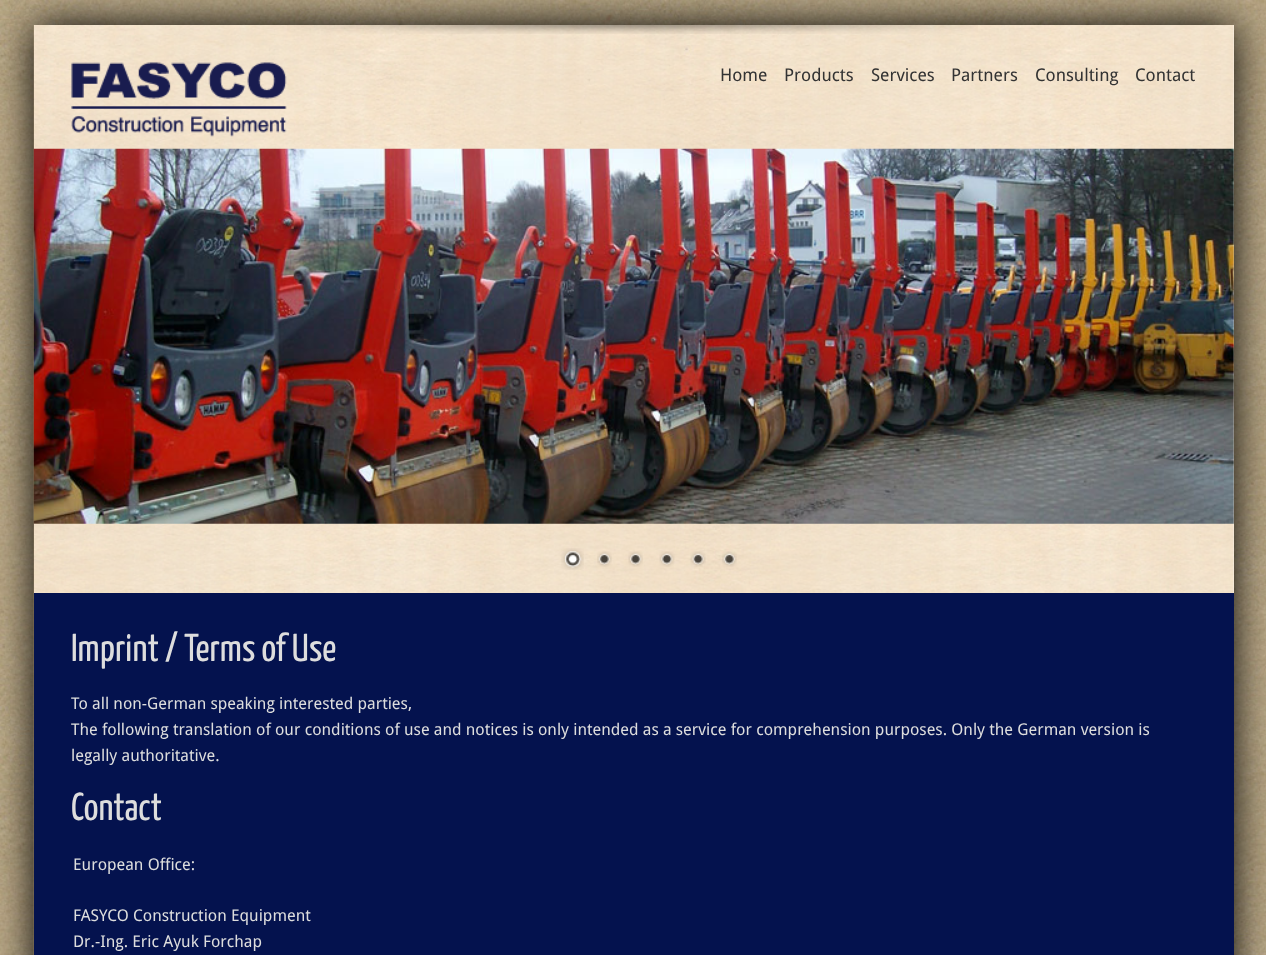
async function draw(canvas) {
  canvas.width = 1266
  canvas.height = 955
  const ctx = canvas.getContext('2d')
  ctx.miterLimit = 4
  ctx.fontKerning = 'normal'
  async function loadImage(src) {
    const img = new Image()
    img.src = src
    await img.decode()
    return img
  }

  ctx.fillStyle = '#fff'
  ctx.fillRect(0, 0, 1266, 955)
  ctx.drawImage(await loadImage('image0.png'), 0, 0, 1266, 955)
  ctx.fillStyle = '#000'
  ctx.filter = 'blur(20px)'
  ctx.beginPath()
  ctx.rect(34, 25, 1200, 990)
  ctx.fill()
  ctx.filter = 'none'
  ctx.fillStyle = '#fff'
  ctx.fillRect(34, 25, 1200, 568)
  ctx.drawImage(await loadImage('image1.png'), 33, 25, 1201, 930)
  ctx.drawImage(await loadImage('image2.png'), 287, 25, 691, 9)
  ctx.drawImage(await loadImage('image3.png'), 71, 62, 216, 75)
  ctx.font = '17.5px Droid Sans'
  ctx.fillStyle = '#333'
  ctx.fillText('Home', 720, 81)
  ctx.fillText('Products', 784, 81)
  ctx.fillText('Services', 871, 81)
  ctx.fillText('Partners', 951, 81)
  ctx.fillText('Consulting', 1035, 81)
  ctx.fillText('Contact', 1135, 81)
  ctx.drawImage(await loadImage('image4.png'), 33, 148, 1201, 376)
  ctx.drawImage(await loadImage('image5.png'), 561, 548, 23, 22)
  ctx.drawImage(await loadImage('image6.png'), 597, 551, 15, 16)
  ctx.drawImage(await loadImage('image7.png'), 628, 551, 15, 16)
  ctx.drawImage(await loadImage('image8.png'), 659, 551, 16, 16)
  ctx.drawImage(await loadImage('image9.png'), 690, 551, 16, 16)
  ctx.drawImage(await loadImage('image10.png'), 722, 551, 15, 16)
  ctx.fillStyle = '#04124e'
  ctx.fillRect(34, 593, 1200, 362)
  ctx.font = '200 39px Yanone Kaffeesatz'
  ctx.fillStyle = '#ddd'
  ctx.fillText('Imprint / Terms of Use', 71, 661)
  ctx.font = '16.25px Droid Sans'
  ctx.fillText('To all non-German speaking interested parties,', 71, 709)
  ctx.fillText('The following translation of our conditions of use and notices is only intended as a service for comprehension purposes. Only the German version is', 71, 735)
  ctx.fillText('legally authoritative.', 71, 761)
  ctx.font = '200 39px Yanone Kaffeesatz'
  ctx.fillText('Contact', 71, 820)
  ctx.font = '16.25px Droid Sans'
  ctx.fillText('European Office:', 73, 870)
  ctx.fillText('FASYCO Construction Equipment', 73, 921)
  ctx.fillText('Dr.-Ing. Eric Ayuk Forchap', 73, 947)
}

draw(document.querySelector('canvas'))
